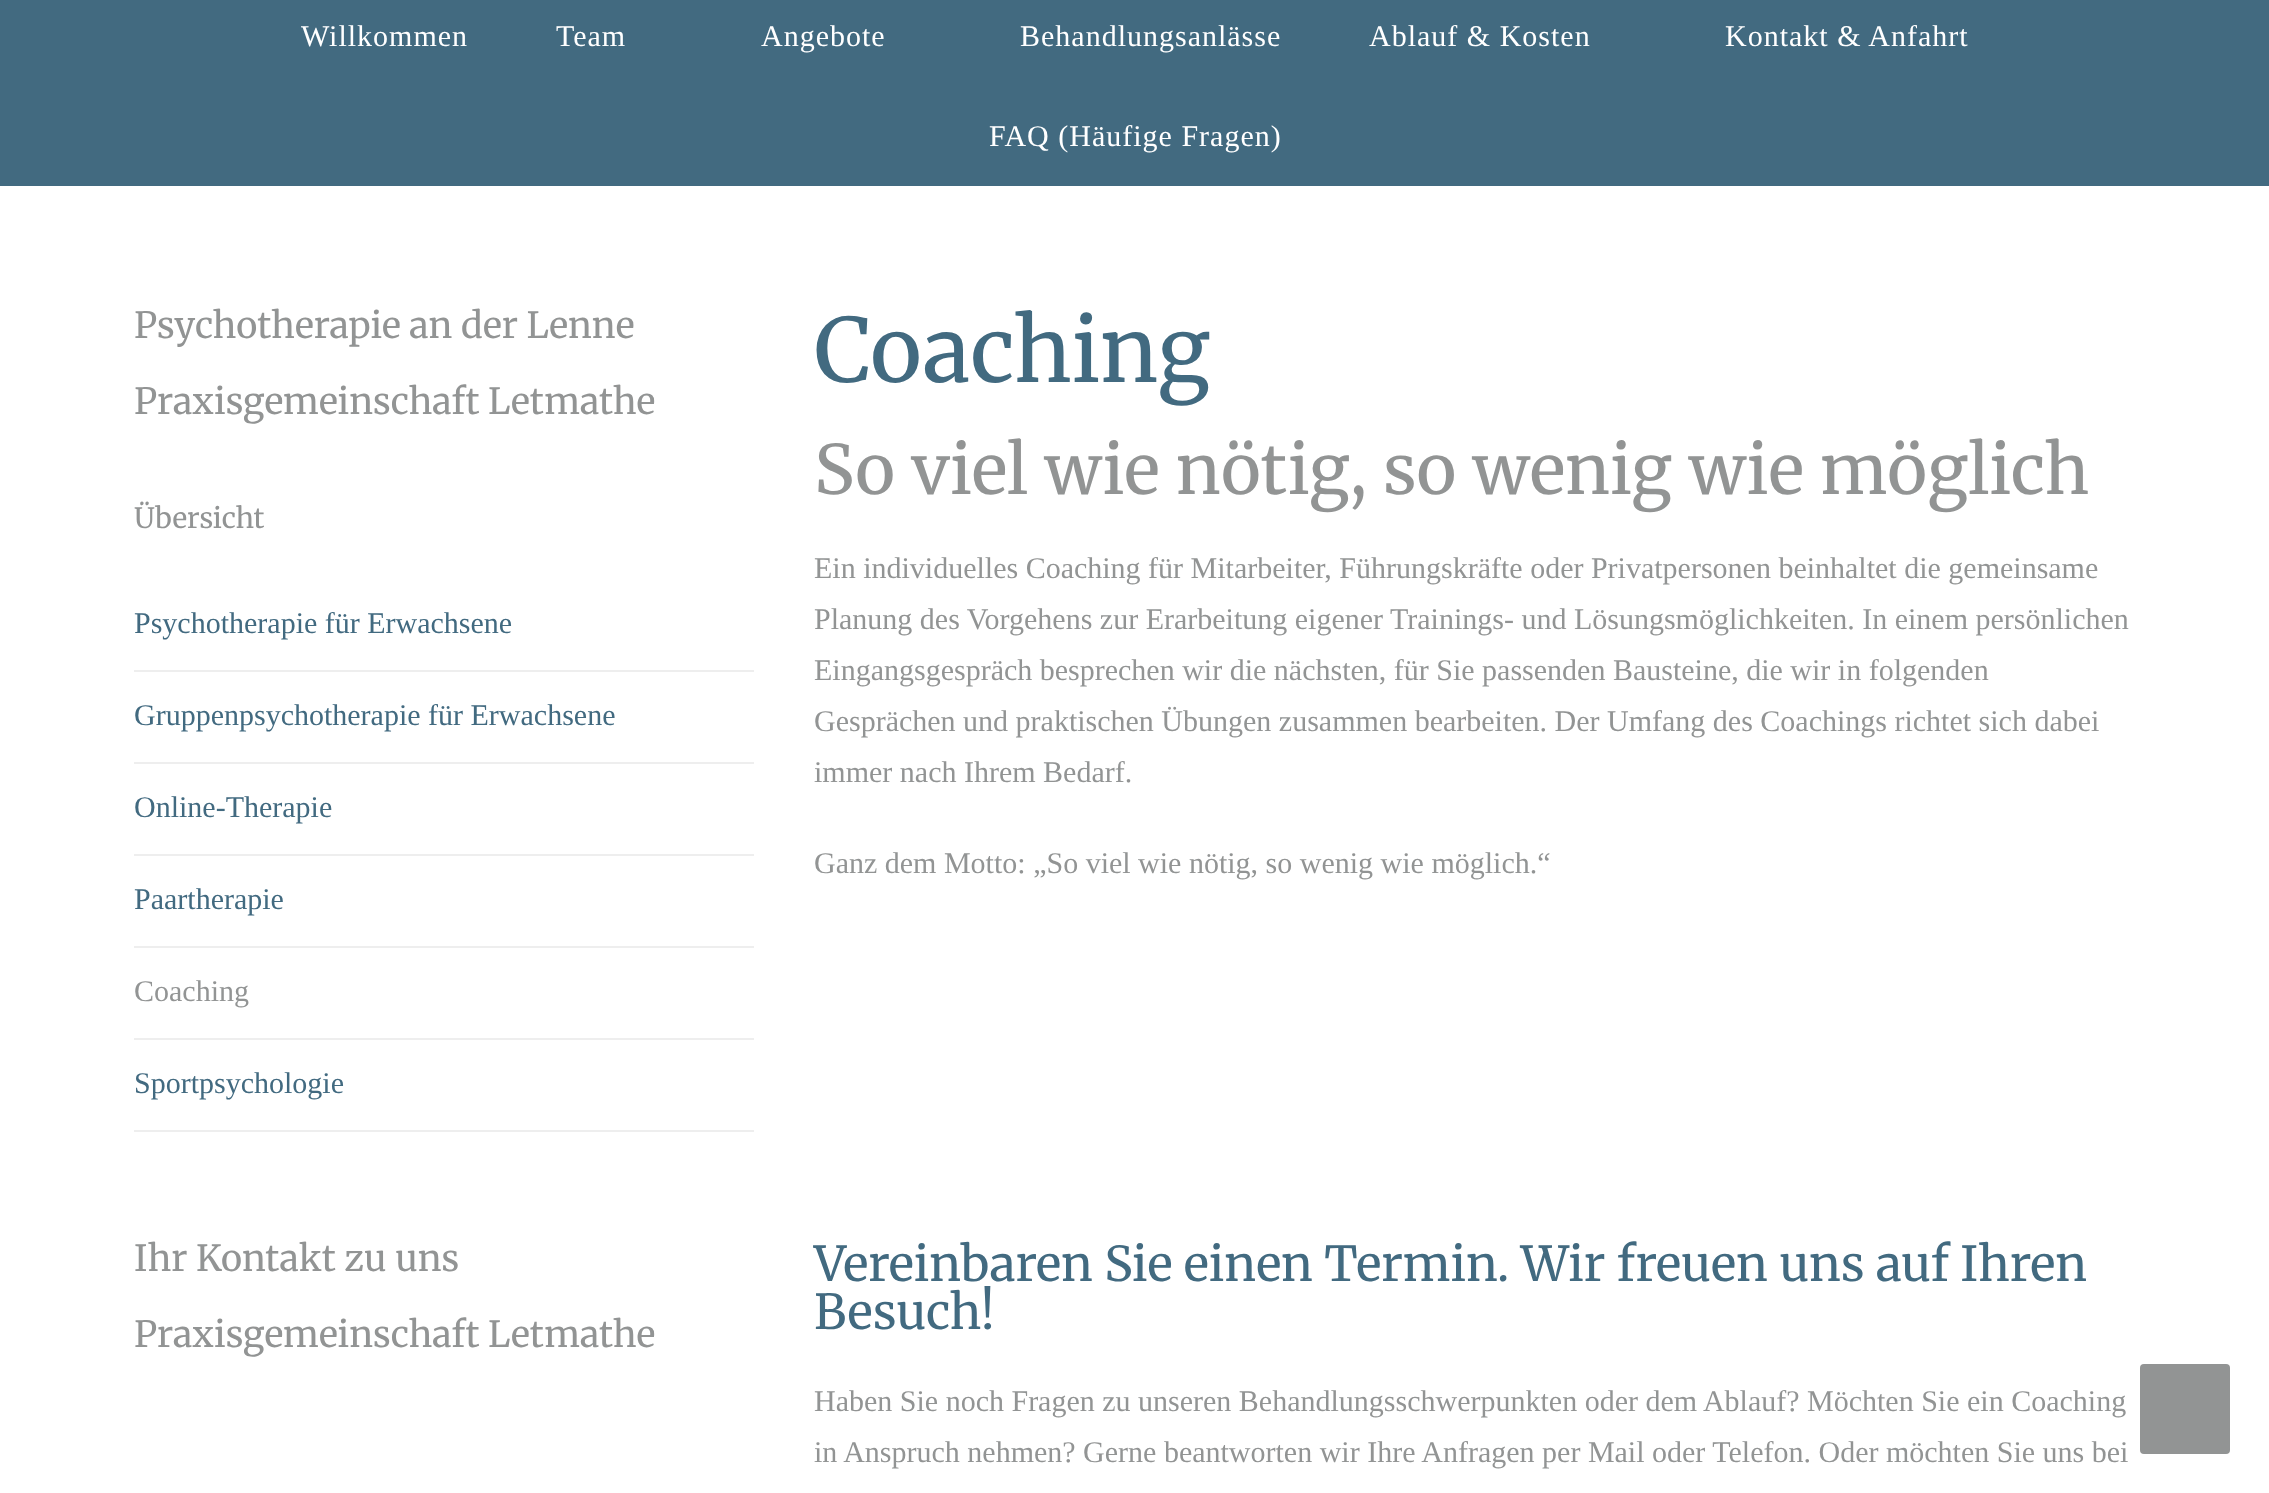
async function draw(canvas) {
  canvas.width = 2269
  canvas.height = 1493
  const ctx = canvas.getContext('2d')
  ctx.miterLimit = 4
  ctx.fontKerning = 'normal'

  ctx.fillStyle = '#fff'
  ctx.fillRect(0, 0, 2269, 1493)
  ctx.fillStyle = '#426a80'
  ctx.fillRect(0, 0, 2269, 186)
  ctx.letterSpacing = '1px'
  ctx.font = '30px Liberation Serif'
  ctx.fillStyle = '#fff'
  ctx.fillText('Willkommen', 301, 46)
  ctx.fillText('Team', 556, 46)
  ctx.fillText('Angebote', 761, 46)
  ctx.fillText('Behandlungsanlässe', 1020, 46)
  ctx.fillText('Ablauf & Kosten', 1369, 46)
  ctx.fillText('Kontakt & Anfahrt', 1725, 46)
  ctx.fillText('FAQ (Häufige Fragen)', 989, 146)
  ctx.letterSpacing = '0px'
  ctx.font = '36px Merriweather'
  ctx.fillStyle = '#929494'
  ctx.fillText('Psychotherapie an der Lenne', 134, 338)
  ctx.fillText('Praxisgemeinschaft Letmathe', 134, 414)
  ctx.font = '28px Merriweather'
  ctx.fillText('Übersicht', 134, 528)
  ctx.fillStyle = '#eee'
  ctx.fillRect(134, 670, 620, 2)
  ctx.font = '30px Liberation Serif'
  ctx.fillStyle = '#426a80'
  ctx.fillText('Psychotherapie für Erwachsene', 134, 633)
  ctx.fillStyle = '#eee'
  ctx.fillRect(134, 762, 620, 2)
  ctx.fillStyle = '#426a80'
  ctx.fillText('Gruppenpsychotherapie für Erwachsene', 134, 725)
  ctx.fillStyle = '#eee'
  ctx.fillRect(134, 854, 620, 2)
  ctx.fillStyle = '#426a80'
  ctx.fillText('Online-Therapie', 134, 817)
  ctx.fillStyle = '#eee'
  ctx.fillRect(134, 946, 620, 2)
  ctx.fillStyle = '#426a80'
  ctx.fillText('Paartherapie', 134, 909)
  ctx.fillStyle = '#eee'
  ctx.fillRect(134, 1038, 620, 2)
  ctx.fillStyle = '#929494'
  ctx.fillText('Coaching', 134, 1001)
  ctx.fillStyle = '#eee'
  ctx.fillRect(134, 1130, 620, 2)
  ctx.fillStyle = '#426a80'
  ctx.fillText('Sportpsychologie', 134, 1093)
  ctx.font = '88px Merriweather'
  ctx.fillText('Coaching', 814, 382)
  ctx.font = '68px Merriweather'
  ctx.fillStyle = '#929494'
  ctx.fillText('So viel wie nötig, so wenig wie möglich', 814, 494)
  ctx.font = '30px Liberation Serif'
  ctx.fillText('Ein individuelles Coaching für Mitarbeiter, Führungskräfte oder Privatpersonen beinhaltet die gemeinsame', 814, 578)
  ctx.fillText('Planung des Vorgehens zur Erarbeitung eigener Trainings- und Lösungsmöglichkeiten. In einem persönlichen', 814, 629)
  ctx.fillText('Eingangsgespräch besprechen wir die nächsten, für Sie passenden Bausteine, die wir in folgenden', 814, 680)
  ctx.fillText('Gesprächen und praktischen Übungen zusammen bearbeiten. Der Umfang des Coachings richtet sich dabei', 814, 731)
  ctx.fillText('immer nach Ihrem Bedarf.', 814, 782)
  ctx.fillText('Ganz dem Motto: „So viel wie nötig, so wenig wie möglich.“', 814, 873)
  ctx.font = '36px Merriweather'
  ctx.fillText('Ihr Kontakt zu uns', 134, 1271)
  ctx.fillText('Praxisgemeinschaft Letmathe', 134, 1347)
  ctx.font = '48px Merriweather'
  ctx.fillStyle = '#426a80'
  ctx.fillText('Vereinbaren Sie einen Termin. Wir freuen uns auf Ihren', 814, 1281)
  ctx.fillText('Besuch!', 814, 1329)
  ctx.font = '30px Liberation Serif'
  ctx.fillStyle = '#929494'
  ctx.fillText('Haben Sie noch Fragen zu unseren Behandlungsschwerpunkten oder dem Ablauf? Möchten Sie ein Coaching', 814, 1411)
  ctx.fillText('in Anspruch nehmen? Gerne beantworten wir Ihre Anfragen per Mail oder Telefon. Oder möchten Sie uns bei', 814, 1462)
  ctx.beginPath()
  ctx.roundRect(2140, 1364, 90, 90, 4)
  ctx.fill()
}

draw(document.querySelector('canvas'))
